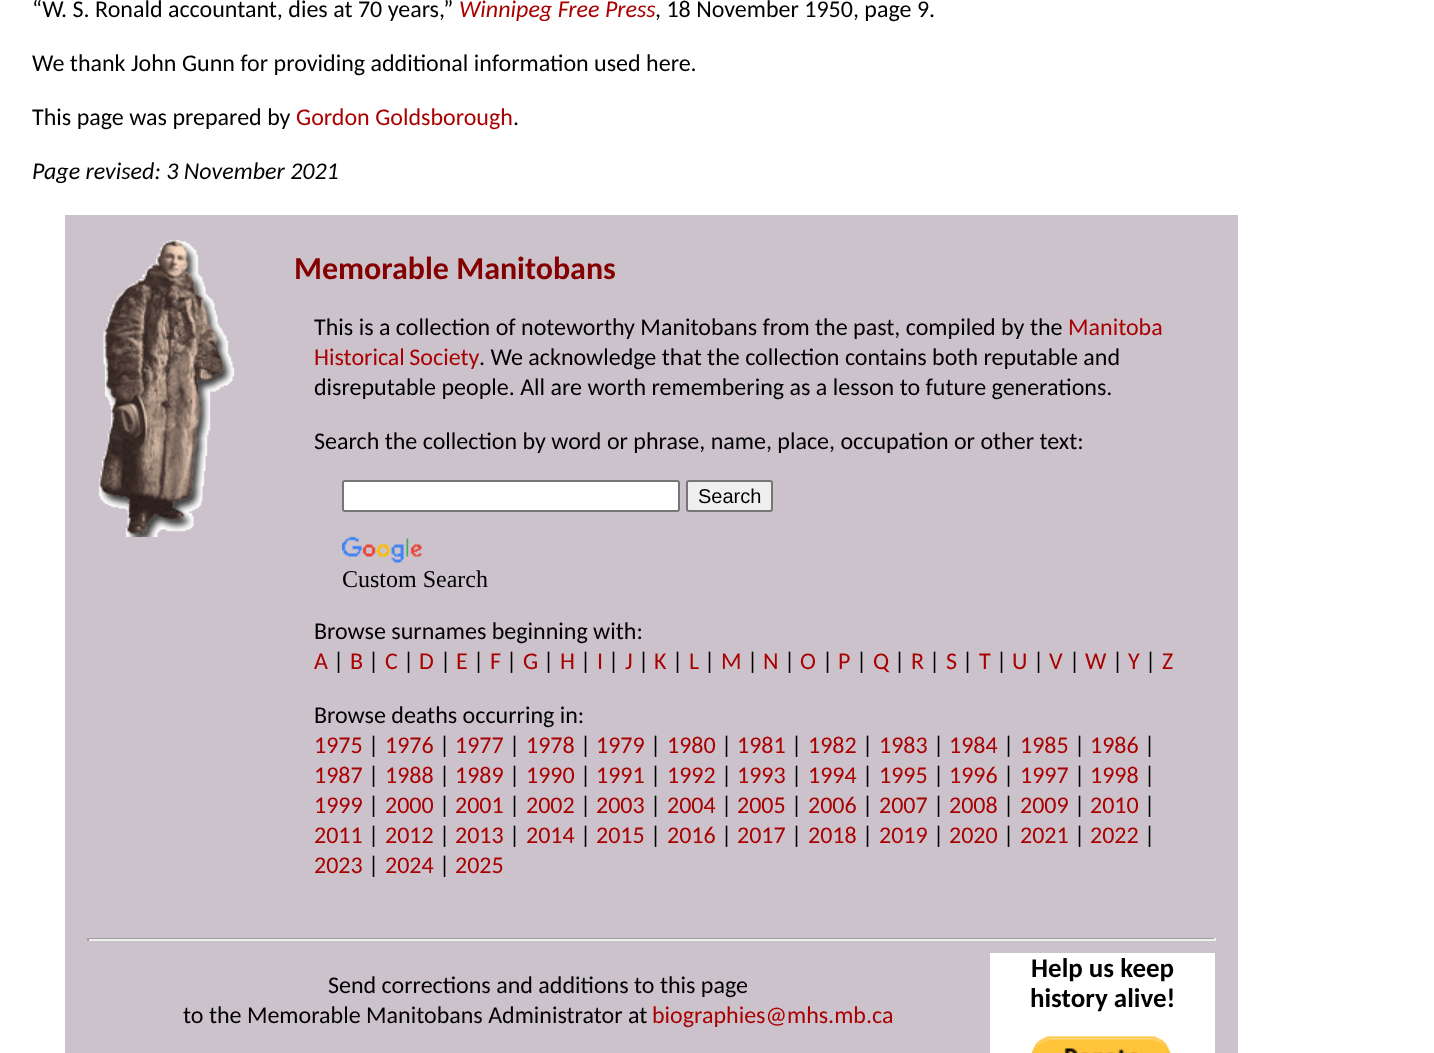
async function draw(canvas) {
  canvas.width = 1434
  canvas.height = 1053
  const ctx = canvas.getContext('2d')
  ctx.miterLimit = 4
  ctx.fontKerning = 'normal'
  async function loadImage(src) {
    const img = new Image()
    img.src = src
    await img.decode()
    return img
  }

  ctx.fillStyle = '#fff'
  ctx.fillRect(0, 0, 1434, 1053)
  ctx.font = '24px Carlito'
  ctx.fillStyle = '#000'
  ctx.fillText('“W. S. Ronald accountant, dies at 70 years,”', 32, 17)
  ctx.font = 'italic 24px Carlito'
  ctx.fillStyle = '#a90000'
  ctx.fillText('Winnipeg Free Press', 459, 17)
  ctx.font = '24px Carlito'
  ctx.fillStyle = '#000'
  ctx.fillText(', 18 November 1950, page 9.', 655, 17)
  ctx.fillText('We thank John Gunn for providing additional information used here.', 32, 71)
  ctx.fillText('This page was prepared by', 32, 125)
  ctx.fillStyle = '#a90000'
  ctx.fillText('Gordon Goldsborough', 296, 125)
  ctx.fillStyle = '#000'
  ctx.fillText('.', 513, 125)
  ctx.font = 'italic 24px Carlito'
  ctx.fillText('Page revised: 3 November 2021', 32, 179)
  ctx.fillStyle = '#cbc2cc'
  ctx.fillRect(65, 215, 1173, 838)
  ctx.drawImage(await loadImage('image0.png'), 98, 239, 137, 298)
  ctx.font = 'bold 32px Carlito'
  ctx.fillStyle = '#840000'
  ctx.fillText('Memorable Manitobans', 294, 279)
  ctx.font = '24px Carlito'
  ctx.fillStyle = '#000'
  ctx.fillText('This is a collection of noteworthy Manitobans from the past, compiled by the', 314, 335)
  ctx.fillStyle = '#a90000'
  ctx.fillText('Manitoba', 1068, 335)
  ctx.wordSpacing = '-1px'
  ctx.fillText('Historical Society', 314, 365)
  ctx.wordSpacing = '0px'
  ctx.fillStyle = '#000'
  ctx.fillText('. We acknowledge that the collection contains both reputable and', 479, 365)
  ctx.fillText('disreputable people. All are worth remembering as a lesson to future generations.', 314, 395)
  ctx.fillText('Search the collection by word or phrase, name, place, occupation or other text:', 314, 449)
  ctx.fillStyle = '#fff'
  ctx.beginPath()
  ctx.roundRect(343, 481, 336, 30, 2)
  ctx.fill()
  ctx.strokeStyle = '#767676'
  ctx.lineWidth = 2
  ctx.stroke()
  ctx.fillStyle = '#efefef'
  ctx.beginPath()
  ctx.roundRect(687, 481, 85, 30, 2)
  ctx.fill()
  ctx.stroke()
  ctx.font = '20px Liberation Sans'
  ctx.fillStyle = '#000'
  ctx.fillText('Search', 698, 503)
  ctx.drawImage(await loadImage('image1.png'), 342, 536, 80, 27)
  ctx.font = '24px Liberation Serif'
  ctx.fillText('Custom Search', 342, 587)
  ctx.font = '24px Carlito'
  ctx.fillText('Browse surnames beginning with:', 314, 639)
  ctx.fillStyle = '#a90000'
  ctx.fillText('A', 314, 669)
  ctx.fillStyle = '#000'
  ctx.fillText('|', 333, 669)
  ctx.fillStyle = '#a90000'
  ctx.fillText('B', 350, 669)
  ctx.fillStyle = '#000'
  ctx.fillText('|', 368, 669)
  ctx.fillStyle = '#a90000'
  ctx.fillText('C', 385, 669)
  ctx.fillStyle = '#000'
  ctx.fillText('|', 403, 669)
  ctx.fillStyle = '#a90000'
  ctx.fillText('D', 419, 669)
  ctx.fillStyle = '#000'
  ctx.fillText('|', 440, 669)
  ctx.fillStyle = '#a90000'
  ctx.fillText('E', 456, 669)
  ctx.fillStyle = '#000'
  ctx.fillText('|', 473, 669)
  ctx.fillStyle = '#a90000'
  ctx.fillText('F', 490, 669)
  ctx.fillStyle = '#000'
  ctx.fillText('|', 506, 669)
  ctx.fillStyle = '#a90000'
  ctx.fillText('G', 523, 669)
  ctx.fillStyle = '#000'
  ctx.fillText('|', 543, 669)
  ctx.fillStyle = '#a90000'
  ctx.fillText('H', 560, 669)
  ctx.fillStyle = '#000'
  ctx.fillText('|', 580, 669)
  ctx.fillStyle = '#a90000'
  ctx.fillText('I', 597, 669)
  ctx.fillStyle = '#000'
  ctx.fillText('|', 608, 669)
  ctx.fillStyle = '#a90000'
  ctx.fillText('J', 625, 669)
  ctx.fillStyle = '#000'
  ctx.fillText('|', 638, 669)
  ctx.fillStyle = '#a90000'
  ctx.fillText('K', 654, 669)
  ctx.fillStyle = '#000'
  ctx.fillText('|', 672, 669)
  ctx.fillStyle = '#a90000'
  ctx.fillText('L', 689, 669)
  ctx.fillStyle = '#000'
  ctx.fillText('|', 704, 669)
  ctx.fillStyle = '#a90000'
  ctx.fillText('M', 721, 669)
  ctx.fillStyle = '#000'
  ctx.fillText('|', 747, 669)
  ctx.fillStyle = '#a90000'
  ctx.fillText('N', 763, 669)
  ctx.fillStyle = '#000'
  ctx.fillText('|', 784, 669)
  ctx.fillStyle = '#a90000'
  ctx.fillText('O', 800, 669)
  ctx.fillStyle = '#000'
  ctx.fillText('|', 822, 669)
  ctx.fillStyle = '#a90000'
  ctx.fillText('P', 838, 669)
  ctx.fillStyle = '#000'
  ctx.fillText('|', 856, 669)
  ctx.fillStyle = '#a90000'
  ctx.fillText('Q', 873, 669)
  ctx.fillStyle = '#000'
  ctx.fillText('|', 894, 669)
  ctx.fillStyle = '#a90000'
  ctx.fillText('R', 911, 669)
  ctx.fillStyle = '#000'
  ctx.fillText('|', 929, 669)
  ctx.fillStyle = '#a90000'
  ctx.fillText('S', 946, 669)
  ctx.fillStyle = '#000'
  ctx.fillText('|', 962, 669)
  ctx.fillStyle = '#a90000'
  ctx.fillText('T', 979, 669)
  ctx.fillStyle = '#000'
  ctx.fillText('|', 996, 669)
  ctx.fillStyle = '#a90000'
  ctx.fillText('U', 1012, 669)
  ctx.fillStyle = '#000'
  ctx.fillText('|', 1033, 669)
  ctx.fillStyle = '#a90000'
  ctx.fillText('V', 1049, 669)
  ctx.fillStyle = '#000'
  ctx.fillText('|', 1069, 669)
  ctx.fillStyle = '#a90000'
  ctx.fillText('W', 1085, 669)
  ctx.fillStyle = '#000'
  ctx.fillText('|', 1112, 669)
  ctx.fillStyle = '#a90000'
  ctx.fillText('Y', 1128, 669)
  ctx.fillStyle = '#000'
  ctx.fillText('|', 1145, 669)
  ctx.fillStyle = '#a90000'
  ctx.fillText('Z', 1162, 669)
  ctx.fillStyle = '#000'
  ctx.fillText('Browse deaths occurring in:', 314, 723)
  ctx.fillStyle = '#a90000'
  ctx.fillText('1975', 314, 753)
  ctx.fillStyle = '#000'
  ctx.fillText('|', 368, 753)
  ctx.fillStyle = '#a90000'
  ctx.fillText('1976', 385, 753)
  ctx.fillStyle = '#000'
  ctx.fillText('|', 439, 753)
  ctx.fillStyle = '#a90000'
  ctx.fillText('1977', 455, 753)
  ctx.fillStyle = '#000'
  ctx.fillText('|', 509, 753)
  ctx.fillStyle = '#a90000'
  ctx.fillText('1978', 526, 753)
  ctx.fillStyle = '#000'
  ctx.fillText('|', 580, 753)
  ctx.fillStyle = '#a90000'
  ctx.fillText('1979', 596, 753)
  ctx.fillStyle = '#000'
  ctx.fillText('|', 650, 753)
  ctx.fillStyle = '#a90000'
  ctx.fillText('1980', 667, 753)
  ctx.fillStyle = '#000'
  ctx.fillText('|', 721, 753)
  ctx.fillStyle = '#a90000'
  ctx.fillText('1981', 737, 753)
  ctx.fillStyle = '#000'
  ctx.fillText('|', 791, 753)
  ctx.fillStyle = '#a90000'
  ctx.fillText('1982', 808, 753)
  ctx.fillStyle = '#000'
  ctx.fillText('|', 862, 753)
  ctx.fillStyle = '#a90000'
  ctx.fillText('1983', 879, 753)
  ctx.fillStyle = '#000'
  ctx.fillText('|', 933, 753)
  ctx.fillStyle = '#a90000'
  ctx.fillText('1984', 949, 753)
  ctx.fillStyle = '#000'
  ctx.fillText('|', 1003, 753)
  ctx.fillStyle = '#a90000'
  ctx.fillText('1985', 1020, 753)
  ctx.fillStyle = '#000'
  ctx.fillText('|', 1074, 753)
  ctx.fillStyle = '#a90000'
  ctx.fillText('1986', 1090, 753)
  ctx.fillStyle = '#000'
  ctx.fillText('|', 1144, 753)
  ctx.fillStyle = '#a90000'
  ctx.fillText('1987', 314, 783)
  ctx.fillStyle = '#000'
  ctx.fillText('|', 368, 783)
  ctx.fillStyle = '#a90000'
  ctx.fillText('1988', 385, 783)
  ctx.fillStyle = '#000'
  ctx.fillText('|', 439, 783)
  ctx.fillStyle = '#a90000'
  ctx.fillText('1989', 455, 783)
  ctx.fillStyle = '#000'
  ctx.fillText('|', 509, 783)
  ctx.fillStyle = '#a90000'
  ctx.fillText('1990', 526, 783)
  ctx.fillStyle = '#000'
  ctx.fillText('|', 580, 783)
  ctx.fillStyle = '#a90000'
  ctx.fillText('1991', 596, 783)
  ctx.fillStyle = '#000'
  ctx.fillText('|', 650, 783)
  ctx.fillStyle = '#a90000'
  ctx.fillText('1992', 667, 783)
  ctx.fillStyle = '#000'
  ctx.fillText('|', 721, 783)
  ctx.fillStyle = '#a90000'
  ctx.fillText('1993', 737, 783)
  ctx.fillStyle = '#000'
  ctx.fillText('|', 791, 783)
  ctx.fillStyle = '#a90000'
  ctx.fillText('1994', 808, 783)
  ctx.fillStyle = '#000'
  ctx.fillText('|', 862, 783)
  ctx.fillStyle = '#a90000'
  ctx.fillText('1995', 879, 783)
  ctx.fillStyle = '#000'
  ctx.fillText('|', 933, 783)
  ctx.fillStyle = '#a90000'
  ctx.fillText('1996', 949, 783)
  ctx.fillStyle = '#000'
  ctx.fillText('|', 1003, 783)
  ctx.fillStyle = '#a90000'
  ctx.fillText('1997', 1020, 783)
  ctx.fillStyle = '#000'
  ctx.fillText('|', 1074, 783)
  ctx.fillStyle = '#a90000'
  ctx.fillText('1998', 1090, 783)
  ctx.fillStyle = '#000'
  ctx.fillText('|', 1144, 783)
  ctx.fillStyle = '#a90000'
  ctx.fillText('1999', 314, 813)
  ctx.fillStyle = '#000'
  ctx.fillText('|', 368, 813)
  ctx.fillStyle = '#a90000'
  ctx.fillText('2000', 385, 813)
  ctx.fillStyle = '#000'
  ctx.fillText('|', 439, 813)
  ctx.fillStyle = '#a90000'
  ctx.fillText('2001', 455, 813)
  ctx.fillStyle = '#000'
  ctx.fillText('|', 509, 813)
  ctx.fillStyle = '#a90000'
  ctx.fillText('2002', 526, 813)
  ctx.fillStyle = '#000'
  ctx.fillText('|', 580, 813)
  ctx.fillStyle = '#a90000'
  ctx.fillText('2003', 596, 813)
  ctx.fillStyle = '#000'
  ctx.fillText('|', 650, 813)
  ctx.fillStyle = '#a90000'
  ctx.fillText('2004', 667, 813)
  ctx.fillStyle = '#000'
  ctx.fillText('|', 721, 813)
  ctx.fillStyle = '#a90000'
  ctx.fillText('2005', 737, 813)
  ctx.fillStyle = '#000'
  ctx.fillText('|', 791, 813)
  ctx.fillStyle = '#a90000'
  ctx.fillText('2006', 808, 813)
  ctx.fillStyle = '#000'
  ctx.fillText('|', 862, 813)
  ctx.fillStyle = '#a90000'
  ctx.fillText('2007', 879, 813)
  ctx.fillStyle = '#000'
  ctx.fillText('|', 933, 813)
  ctx.fillStyle = '#a90000'
  ctx.fillText('2008', 949, 813)
  ctx.fillStyle = '#000'
  ctx.fillText('|', 1003, 813)
  ctx.fillStyle = '#a90000'
  ctx.fillText('2009', 1020, 813)
  ctx.fillStyle = '#000'
  ctx.fillText('|', 1074, 813)
  ctx.fillStyle = '#a90000'
  ctx.fillText('2010', 1090, 813)
  ctx.fillStyle = '#000'
  ctx.fillText('|', 1144, 813)
  ctx.fillStyle = '#a90000'
  ctx.fillText('2011', 314, 843)
  ctx.fillStyle = '#000'
  ctx.fillText('|', 368, 843)
  ctx.fillStyle = '#a90000'
  ctx.fillText('2012', 385, 843)
  ctx.fillStyle = '#000'
  ctx.fillText('|', 439, 843)
  ctx.fillStyle = '#a90000'
  ctx.fillText('2013', 455, 843)
  ctx.fillStyle = '#000'
  ctx.fillText('|', 509, 843)
  ctx.fillStyle = '#a90000'
  ctx.fillText('2014', 526, 843)
  ctx.fillStyle = '#000'
  ctx.fillText('|', 580, 843)
  ctx.fillStyle = '#a90000'
  ctx.fillText('2015', 596, 843)
  ctx.fillStyle = '#000'
  ctx.fillText('|', 650, 843)
  ctx.fillStyle = '#a90000'
  ctx.fillText('2016', 667, 843)
  ctx.fillStyle = '#000'
  ctx.fillText('|', 721, 843)
  ctx.fillStyle = '#a90000'
  ctx.fillText('2017', 737, 843)
  ctx.fillStyle = '#000'
  ctx.fillText('|', 791, 843)
  ctx.fillStyle = '#a90000'
  ctx.fillText('2018', 808, 843)
  ctx.fillStyle = '#000'
  ctx.fillText('|', 862, 843)
  ctx.fillStyle = '#a90000'
  ctx.fillText('2019', 879, 843)
  ctx.fillStyle = '#000'
  ctx.fillText('|', 933, 843)
  ctx.fillStyle = '#a90000'
  ctx.fillText('2020', 949, 843)
  ctx.fillStyle = '#000'
  ctx.fillText('|', 1003, 843)
  ctx.fillStyle = '#a90000'
  ctx.fillText('2021', 1020, 843)
  ctx.fillStyle = '#000'
  ctx.fillText('|', 1074, 843)
  ctx.fillStyle = '#a90000'
  ctx.fillText('2022', 1090, 843)
  ctx.fillStyle = '#000'
  ctx.fillText('|', 1144, 843)
  ctx.fillStyle = '#a90000'
  ctx.fillText('2023', 314, 873)
  ctx.fillStyle = '#000'
  ctx.fillText('|', 368, 873)
  ctx.fillStyle = '#a90000'
  ctx.fillText('2024', 385, 873)
  ctx.fillStyle = '#000'
  ctx.fillText('|', 439, 873)
  ctx.fillStyle = '#a90000'
  ctx.fillText('2025', 455, 873)
  ctx.fillStyle = '#9f9f9f'
  ctx.fillRect(87, 938, 1128, 1)
  ctx.fillStyle = '#eee'
  ctx.fillRect(1214, 938, 2, 3)
  ctx.fillRect(87, 939, 1128, 2)
  ctx.fillStyle = '#9f9f9f'
  ctx.fillRect(87, 938, 2, 3)
  ctx.fillStyle = '#000'
  ctx.fillText('Send corrections and additions to this page', 328, 993)
  ctx.fillText('to the Memorable Manitobans Administrator at', 183, 1023)
  ctx.fillStyle = '#a90000'
  ctx.fillText('biographies@mhs.mb.ca', 652, 1023)
  ctx.fillStyle = '#fff'
  ctx.fillRect(990, 953, 225, 100)
  ctx.font = 'bold 27px Carlito'
  ctx.fillStyle = '#000'
  ctx.fillText('Help us keep', 1031, 977)
  ctx.fillText('history alive!', 1030, 1007)
  ctx.drawImage(await loadImage('image2.png'), 1031, 1036, 140, 17)
}

draw(document.querySelector('canvas'))
